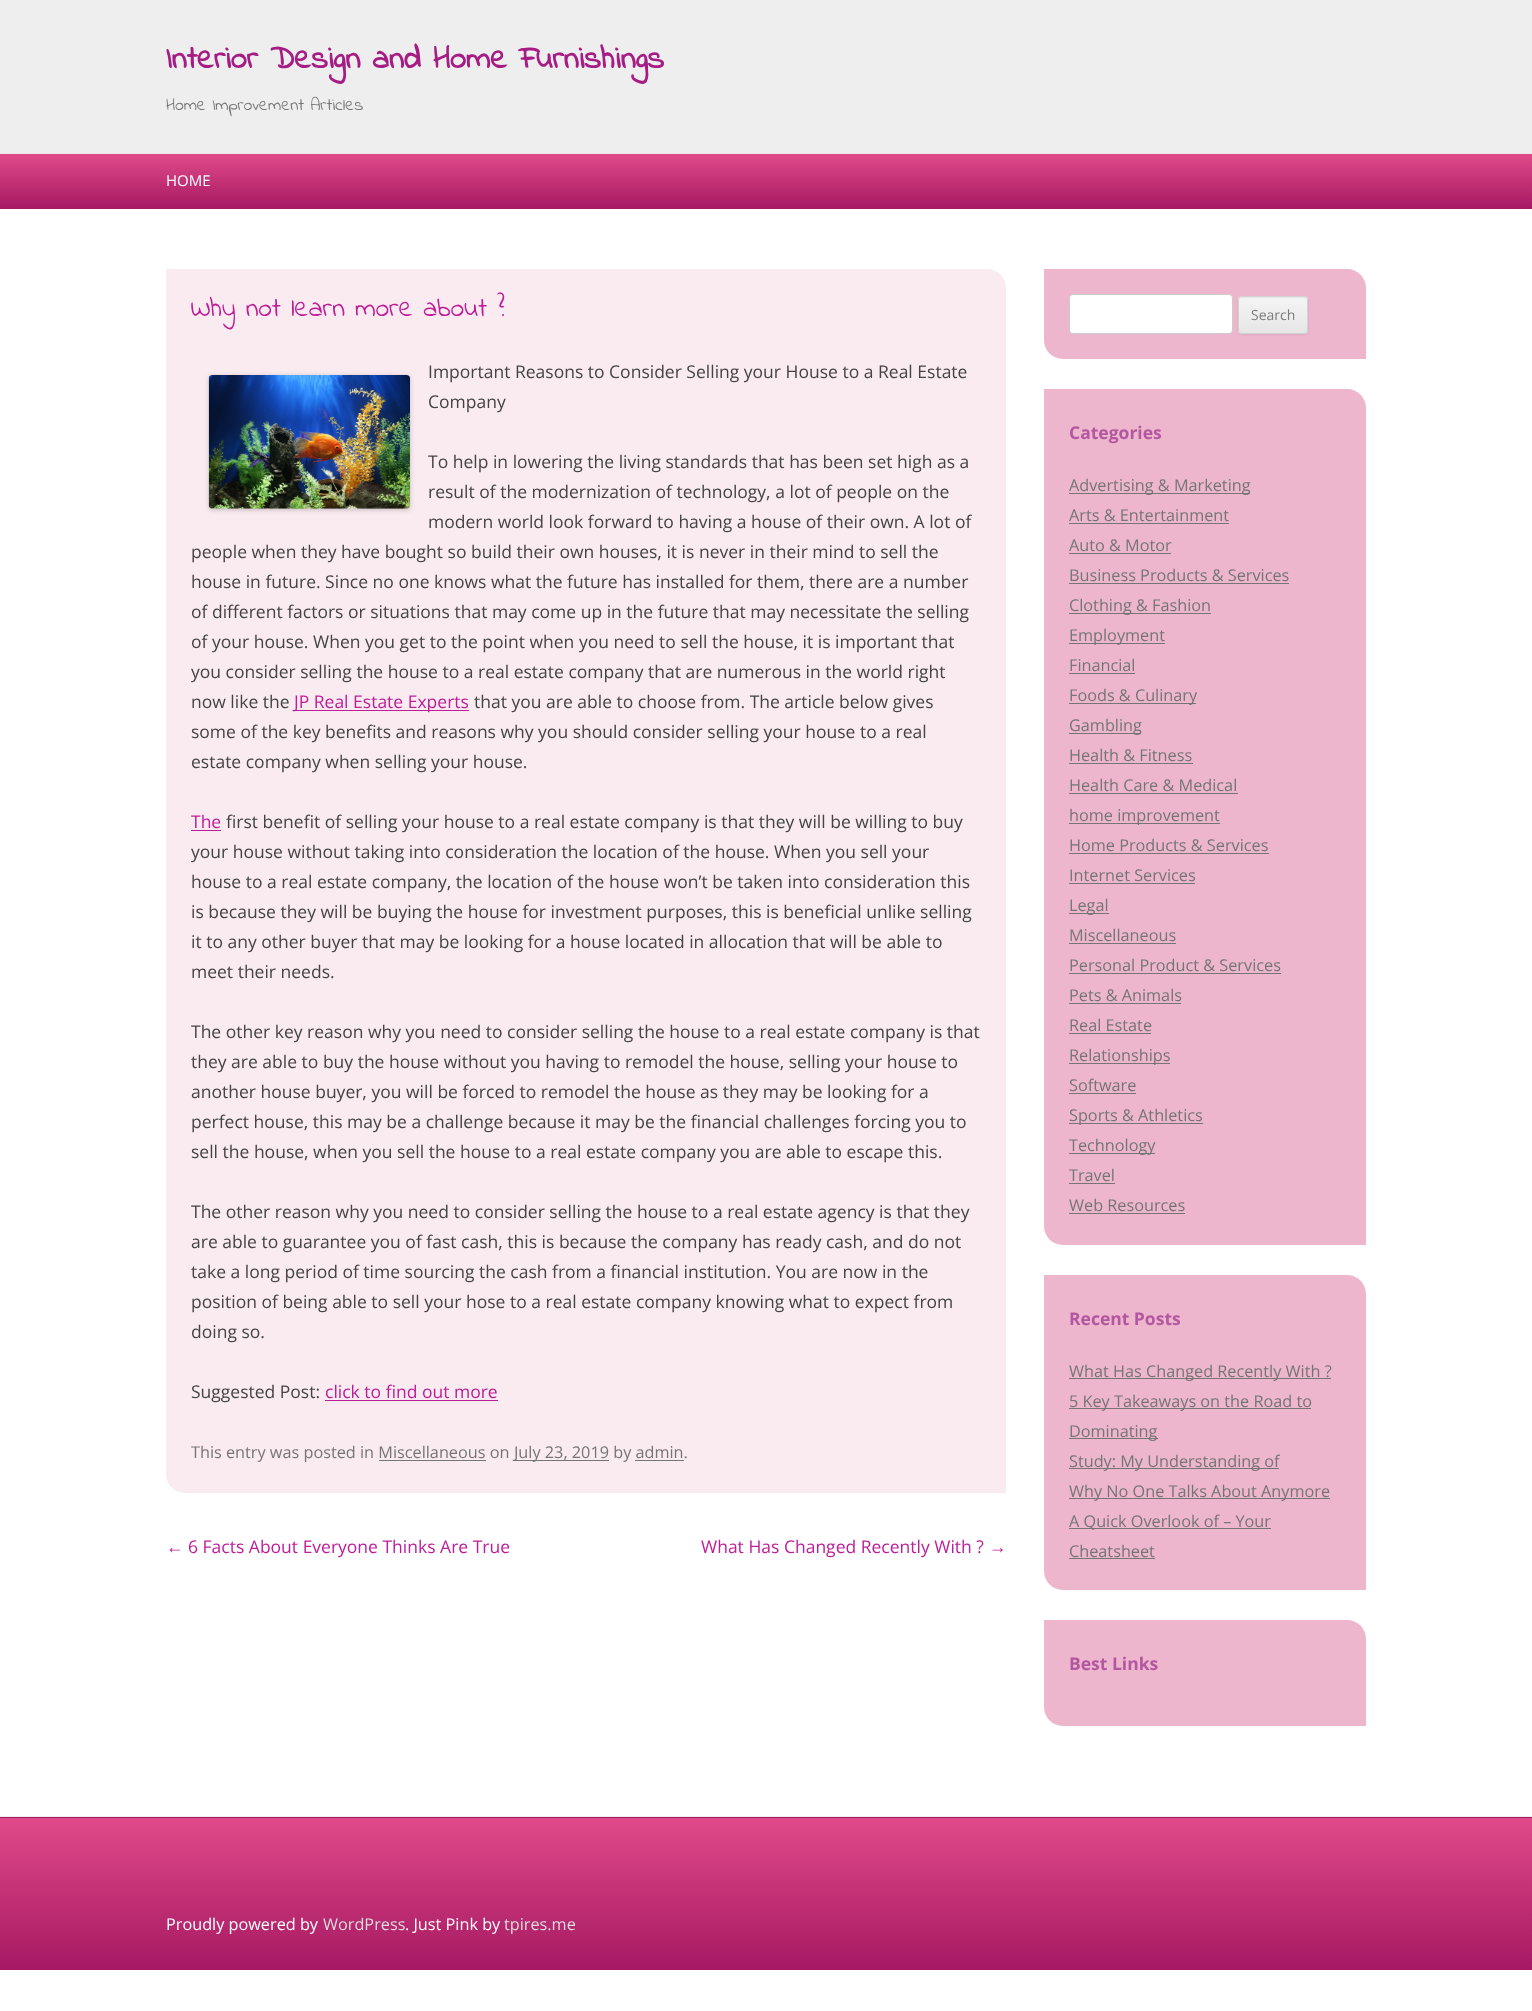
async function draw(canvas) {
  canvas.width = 1532
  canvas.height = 2011
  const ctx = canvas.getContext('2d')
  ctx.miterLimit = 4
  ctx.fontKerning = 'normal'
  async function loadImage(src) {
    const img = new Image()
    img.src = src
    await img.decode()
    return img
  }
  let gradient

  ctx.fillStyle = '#fff'
  ctx.fillRect(0, 0, 1532, 2011)
  ctx.fillStyle = '#eee'
  ctx.fillRect(0, 0, 1532, 153)
  ctx.fillStyle = '#e8e5e6'
  ctx.fillRect(0, 153, 1532, 1)
  ctx.font = 'bold 32.5px Indie Flower'
  ctx.fillStyle = '#a51c85'
  ctx.fillText('Interior Design and Home Furnishings', 166, 68)
  ctx.font = '17.5px Indie Flower'
  ctx.fillStyle = '#757575'
  ctx.fillText('Home Improvement Articles', 166, 110)
  gradient = ctx.createLinearGradient(766, 154, 766, 209)
  gradient.addColorStop(0, '#e04a8a')
  gradient.addColorStop(1, '#a61962')
  ctx.fillStyle = gradient
  ctx.fillRect(0, 154, 1532, 55)
  ctx.font = '15px Open Sans'
  ctx.fillStyle = '#fff'
  ctx.fillText('HOME', 166, 186)
  ctx.fillStyle = '#faebf1'
  ctx.beginPath()
  ctx.roundRect(166, 269, 840, 1224, [0, 19, 0, 19])
  ctx.fill()
  ctx.font = '27.5px Indie Flower'
  ctx.fillStyle = '#bd1e98'
  ctx.fillText('Why not learn more about ?', 191, 316)
  ctx.fillStyle = '#00000033'
  ctx.filter = 'blur(2.5px)'
  ctx.beginPath()
  ctx.roundRect(209, 376, 201, 134, 4)
  ctx.fill()
  ctx.filter = 'none'
  ctx.drawImage(await loadImage('image0.png'), 208, 375, 202, 134)
  ctx.font = '17.5px Open Sans'
  ctx.fillStyle = '#444'
  ctx.fillText('Important Reasons to Consider Selling your House to a Real Estate', 428, 378)
  ctx.fillText('Company', 428, 408)
  ctx.fillText('To help in lowering the living standards that has been set high as a', 428, 468)
  ctx.fillText('result of the modernization of technology, a lot of people on the', 428, 498)
  ctx.fillText('modern world look forward to having a house of their own. A lot of', 428, 528)
  ctx.fillText('people when they have bought so build their own houses, it is never in their mind to sell the', 191, 558)
  ctx.fillText('house in future. Since no one knows what the future has installed for them, there are a number', 191, 588)
  ctx.fillText('of different factors or situations that may come up in the future that may necessitate the selling', 191, 618)
  ctx.fillText('of your house. When you get to the point when you need to sell the house, it is important that', 191, 648)
  ctx.fillText('you consider selling the house to a real estate company that are numerous in the world right', 191, 678)
  ctx.fillText('now like the', 191, 708)
  ctx.fillStyle = '#bd1e98'
  ctx.fillRect(295, 710, 174, 1)
  ctx.fillText('JP Real Estate Experts', 294, 708)
  ctx.fillStyle = '#444'
  ctx.fillText('that you are able to choose from. The article below gives', 474, 708)
  ctx.fillText('some of the key benefits and reasons why you should consider selling your house to a real', 191, 738)
  ctx.fillText('estate company when selling your house.', 191, 768)
  ctx.fillStyle = '#bd1e98'
  ctx.fillText('The', 191, 828)
  ctx.fillRect(191, 830, 30, 1)
  ctx.fillStyle = '#444'
  ctx.fillText('first benefit of selling your house to a real estate company is that they will be willing to buy', 226, 828)
  ctx.fillText('your house without taking into consideration the location of the house. When you sell your', 191, 858)
  ctx.fillText('house to a real estate company, the location of the house won’t be taken into consideration this', 191, 888)
  ctx.fillText('is because they will be buying the house for investment purposes, this is beneficial unlike selling', 191, 918)
  ctx.fillText('it to any other buyer that may be looking for a house located in allocation that will be able to', 191, 948)
  ctx.fillText('meet their needs.', 191, 978)
  ctx.fillText('The other key reason why you need to consider selling the house to a real estate company is that', 191, 1038)
  ctx.fillText('they are able to buy the house without you having to remodel the house, selling your house to', 191, 1068)
  ctx.fillText('another house buyer, you will be forced to remodel the house as they may be looking for a', 191, 1098)
  ctx.fillText('perfect house, this may be a challenge because it may be the financial challenges forcing you to', 191, 1128)
  ctx.fillText('sell the house, when you sell the house to a real estate company you are able to escape this.', 191, 1158)
  ctx.fillText('The other reason why you need to consider selling the house to a real estate agency is that they', 191, 1218)
  ctx.fillText('are able to guarantee you of fast cash, this is because the company has ready cash, and do not', 191, 1248)
  ctx.fillText('take a long period of time sourcing the cash from a financial institution. You are now in the', 191, 1278)
  ctx.fillText('position of being able to sell your hose to a real estate company knowing what to expect from', 191, 1308)
  ctx.fillText('doing so.', 191, 1338)
  ctx.fillText('Suggested Post:', 191, 1398)
  ctx.fillStyle = '#bd1e98'
  ctx.fillText('click to find out more', 325, 1398)
  ctx.fillRect(325, 1400, 173, 1)
  ctx.font = '16.25px Open Sans'
  ctx.fillStyle = '#757575'
  ctx.fillText('This entry was posted in Miscellaneous on', 191, 1458)
  ctx.fillRect(514, 1460, 95, 1)
  ctx.fillText('July 23, 2019 by admin.', 514, 1458)
  ctx.fillRect(379, 1460, 107, 1)
  ctx.fillRect(635, 1460, 49, 1)
  ctx.font = '17.5px Liberation Sans'
  ctx.fillStyle = '#bd1e98'
  ctx.fillText('←', 166, 1553)
  ctx.font = '17.5px Open Sans'
  ctx.fillText('6 Facts About Everyone Thinks Are True', 188, 1553)
  ctx.fillText('What Has Changed Recently With ?', 701, 1553)
  ctx.font = '17.5px Liberation Sans'
  ctx.fillText('→', 989, 1553)
  ctx.fillStyle = '#edb6cd'
  ctx.beginPath()
  ctx.roundRect(1044, 269, 322, 90, [0, 19, 0, 19])
  ctx.fill()
  ctx.fillStyle = '#fff'
  ctx.beginPath()
  ctx.roundRect(1069.5, 294.5, 163, 39, 3.5)
  ctx.fill()
  ctx.strokeStyle = '#ccc'
  ctx.stroke()
  ctx.fillStyle = '#4040401a'
  ctx.filter = 'blur(1px)'
  ctx.beginPath()
  ctx.roundRect(1238, 298, 70, 37, 4)
  ctx.fill()
  ctx.filter = 'none'
  ctx.fillStyle = '#e6e6e6'
  ctx.beginPath()
  ctx.roundRect(1238, 296, 70, 38, 4)
  ctx.fill()
  ctx.save()
  ctx.beginPath()
  ctx.roundRect(1238, 296, 70, 38, 4)
  ctx.clip()
  gradient = ctx.createLinearGradient(1273, 298, 1273, 333)
  gradient.addColorStop(0, '#f4f4f4')
  gradient.addColorStop(1, '#e6e6e6')
  ctx.fillStyle = gradient
  ctx.fillRect(1238, 298, 70, 35)
  ctx.restore()
  ctx.beginPath()
  ctx.roundRect(1238.5, 296.5, 69, 37, 3.5)
  ctx.strokeStyle = '#d2d2d2'
  ctx.stroke()
  ctx.font = '14px Open Sans'
  ctx.fillStyle = '#7c7c7c'
  ctx.fillText('Search', 1251, 320)
  ctx.fillStyle = '#edb6cd'
  ctx.beginPath()
  ctx.roundRect(1044, 389, 322, 856, [0, 19, 0, 19])
  ctx.fill()
  ctx.font = 'bold 17.5px Open Sans'
  ctx.fillStyle = '#b257a0'
  ctx.fillText('Categories', 1069, 439)
  ctx.fillStyle = '#757575'
  ctx.fillRect(1069, 493, 181, 1)
  ctx.font = '16.25px Open Sans'
  ctx.fillText('Advertising & Marketing', 1069, 491)
  ctx.fillText('Arts & Entertainment', 1069, 521)
  ctx.fillRect(1069, 523, 160, 1)
  ctx.fillText('Auto & Motor', 1069, 551)
  ctx.fillRect(1069, 553, 102, 1)
  ctx.fillText('Business Products & Services', 1069, 581)
  ctx.fillRect(1069, 583, 220, 1)
  ctx.fillRect(1069, 613, 142, 1)
  ctx.fillText('Clothing & Fashion', 1069, 611)
  ctx.fillRect(1069, 643, 96, 1)
  ctx.fillText('Employment', 1069, 641)
  ctx.fillText('Financial', 1069, 671)
  ctx.fillRect(1069, 673, 66, 1)
  ctx.fillRect(1069, 703, 127, 1)
  ctx.fillText('Foods & Culinary', 1069, 701)
  ctx.fillRect(1069, 733, 72, 1)
  ctx.fillText('Gambling', 1069, 731)
  ctx.fillText('Health & Fitness', 1069, 761)
  ctx.fillRect(1069, 763, 124, 1)
  ctx.fillText('Health Care & Medical', 1069, 791)
  ctx.fillRect(1069, 793, 169, 1)
  ctx.fillRect(1069, 823, 151, 1)
  ctx.fillText('home improvement', 1069, 821)
  ctx.fillText('Home Products & Services', 1069, 851)
  ctx.fillRect(1069, 853, 200, 1)
  ctx.fillText('Internet Services', 1069, 881)
  ctx.fillRect(1069, 883, 126, 1)
  ctx.fillRect(1069, 913, 40, 1)
  ctx.fillText('Legal', 1069, 911)
  ctx.fillText('Miscellaneous', 1069, 941)
  ctx.fillRect(1069, 943, 107, 1)
  ctx.fillText('Personal Product & Services', 1069, 971)
  ctx.fillRect(1069, 973, 212, 1)
  ctx.fillText('Pets & Animals', 1069, 1001)
  ctx.fillRect(1069, 1003, 112, 1)
  ctx.fillText('Real Estate', 1069, 1031)
  ctx.fillRect(1069, 1033, 82, 1)
  ctx.fillRect(1069, 1063, 101, 1)
  ctx.fillText('Relationships', 1069, 1061)
  ctx.fillText('Software', 1069, 1091)
  ctx.fillRect(1069, 1093, 67, 1)
  ctx.fillRect(1069, 1123, 134, 1)
  ctx.fillText('Sports & Athletics', 1069, 1121)
  ctx.fillRect(1069, 1153, 86, 1)
  ctx.fillText('Technology', 1069, 1151)
  ctx.fillText('Travel', 1069, 1181)
  ctx.fillRect(1069, 1183, 46, 1)
  ctx.fillText('Web Resources', 1069, 1211)
  ctx.fillRect(1069, 1213, 116, 1)
  ctx.fillStyle = '#edb6cd'
  ctx.beginPath()
  ctx.roundRect(1044, 1275, 322, 315, [0, 19, 0, 19])
  ctx.fill()
  ctx.font = 'bold 17.5px Open Sans'
  ctx.fillStyle = '#b257a0'
  ctx.fillText('Recent Posts', 1069, 1325)
  ctx.fillStyle = '#757575'
  ctx.fillRect(1069, 1378, 262, 1)
  ctx.font = '16.25px Open Sans'
  ctx.fillText('What Has Changed Recently With ?', 1069, 1377)
  ctx.fillRect(1069, 1408, 242, 1)
  ctx.fillText('5 Key Takeaways on the Road to', 1069, 1407)
  ctx.fillRect(1069, 1438, 89, 1)
  ctx.fillText('Dominating', 1069, 1437)
  ctx.fillRect(1069, 1468, 210, 1)
  ctx.fillText('Study: My Understanding of', 1069, 1467)
  ctx.fillRect(1069, 1498, 261, 1)
  ctx.fillText('Why No One Talks About Anymore', 1069, 1497)
  ctx.fillRect(1069, 1528, 202, 1)
  ctx.fillText('A Quick Overlook of – Your', 1069, 1527)
  ctx.fillText('Cheatsheet', 1069, 1557)
  ctx.fillRect(1069, 1558, 86, 1)
  ctx.fillStyle = '#edb6cd'
  ctx.beginPath()
  ctx.roundRect(1044, 1620, 322, 106, [0, 19, 0, 19])
  ctx.fill()
  ctx.font = 'bold 17.5px Open Sans'
  ctx.fillStyle = '#b257a0'
  ctx.fillText('Best Links', 1069, 1670)
  gradient = ctx.createLinearGradient(766, 1665, 766, 1818)
  gradient.addColorStop(0, '#e04a8a')
  gradient.addColorStop(1, '#a61962')
  ctx.fillStyle = gradient
  ctx.fillRect(0, 1817, 1532, 1)
  gradient = ctx.createLinearGradient(766, 1818, 766, 1970)
  gradient.addColorStop(0, '#e04a8a')
  gradient.addColorStop(1, '#a61962')
  ctx.fillStyle = gradient
  ctx.fillRect(0, 1818, 1532, 152)
  ctx.fillStyle = '#ededed'
  ctx.fillRect(0, 1816, 1532, 1)
  ctx.font = '16.25px Open Sans'
  ctx.fillStyle = '#fff'
  ctx.fillText('Proudly powered by', 166, 1930)
  ctx.fillStyle = '#ddd'
  ctx.fillText('WordPress', 323, 1930)
  ctx.fillStyle = '#fff'
  ctx.fillText('. Just Pink by', 405, 1930)
  ctx.fillStyle = '#ddd'
  ctx.fillText('tpires.me', 504, 1930)
}

draw(document.querySelector('canvas'))
